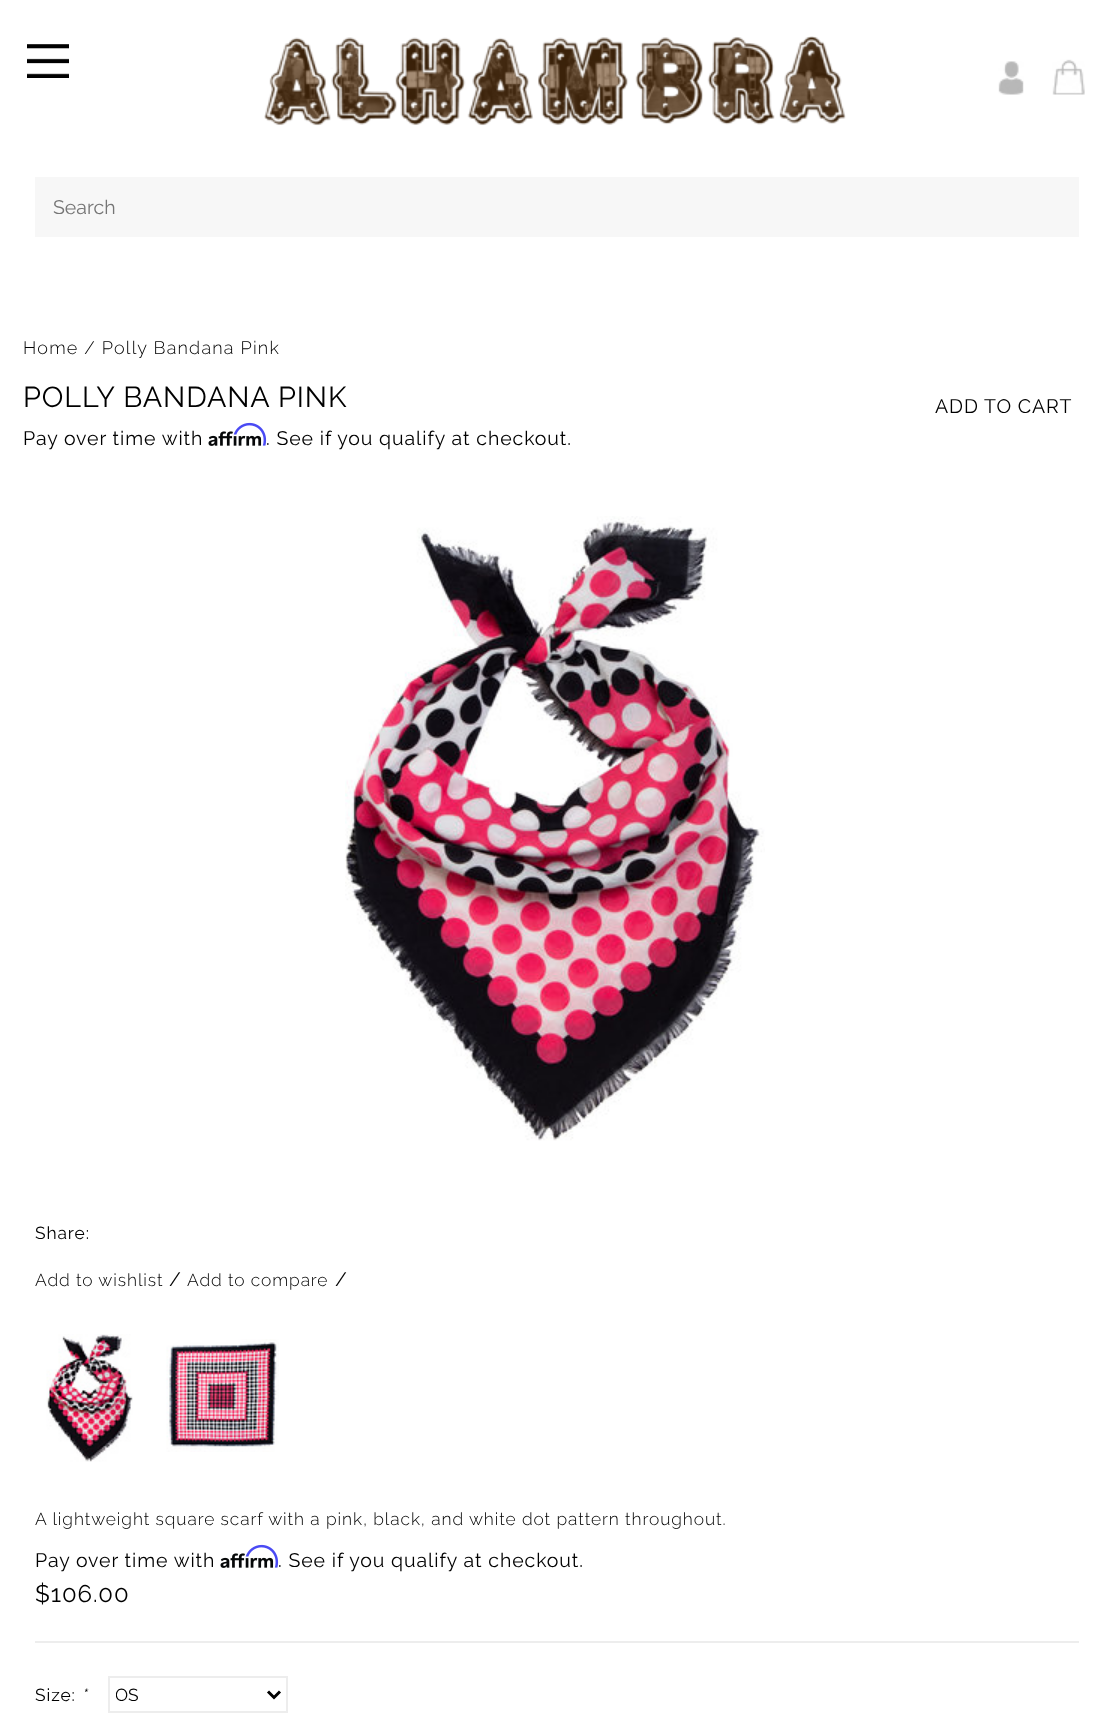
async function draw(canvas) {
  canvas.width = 1112
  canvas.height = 1727
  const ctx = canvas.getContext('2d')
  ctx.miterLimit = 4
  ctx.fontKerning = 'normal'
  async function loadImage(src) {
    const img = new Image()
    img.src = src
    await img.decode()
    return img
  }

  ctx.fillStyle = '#fff'
  ctx.fillRect(0, 0, 1112, 1727)
  ctx.drawImage(await loadImage('image0.png'), 27, 44, 42, 34)
  ctx.drawImage(await loadImage('image1.png'), 264, 36, 582, 90)
  ctx.drawImage(await loadImage('image2.png'), 998, 61, 26, 34)
  ctx.drawImage(await loadImage('image3.png'), 1052, 59, 33, 36)
  ctx.fillStyle = '#f7f7f7'
  ctx.fillRect(35, 177, 1044, 60)
  ctx.font = '19.5px Raleway'
  ctx.fillStyle = '#757575'
  ctx.fillText('Search', 53, 214)
  ctx.letterSpacing = '1.2px'
  ctx.font = '300 18px Raleway'
  ctx.fillStyle = '#000'
  ctx.fillText('Home / Polly Bandana Pink', 23, 354)
  ctx.letterSpacing = '0.9px'
  ctx.font = '28.75px Raleway'
  ctx.fillText('POLLY BANDANA PINK', 23, 407)
  ctx.font = '19.5px Raleway'
  ctx.fillText('ADD TO CART', 935, 413)
  ctx.fillText('Pay over time with', 23, 445)
  ctx.drawImage(await loadImage('image5.png'), 208, 431, 54, 15)
  ctx.drawImage(await loadImage('image4.png'), 233, 422, 34, 24)
  ctx.fillText('. See if you qualify at checkout.', 266, 445)
  ctx.drawImage(await loadImage('image6.png'), 345, 516, 420, 625)
  ctx.font = '17.4px Raleway'
  ctx.fillText('Share:', 35, 1239)
  ctx.font = '300 17.4px Raleway'
  ctx.fillText('Add to wishlist', 35, 1286)
  ctx.font = '19.5px Raleway'
  ctx.fillText('/', 169, 1286)
  ctx.font = '300 17.4px Raleway'
  ctx.fillText('Add to compare', 187, 1286)
  ctx.font = '19.5px Raleway'
  ctx.fillText('/', 335, 1286)
  ctx.drawImage(await loadImage('image7.png'), 46, 1334, 87, 128)
  ctx.drawImage(await loadImage('image8.png'), 166, 1339, 113, 113)
  ctx.font = '300 17.4px Raleway'
  ctx.fillText('A lightweight square scarf with a pink, black, and white dot pattern throughout.', 35, 1525)
  ctx.font = '19.5px Raleway'
  ctx.fillText('Pay over time with', 35, 1567)
  ctx.drawImage(await loadImage('image5.png'), 220, 1553, 54, 15)
  ctx.drawImage(await loadImage('image4.png'), 245, 1544, 34, 24)
  ctx.fillText('. See if you qualify at checkout.', 278, 1567)
  ctx.fillStyle = '#ededed'
  ctx.fillRect(35, 1641, 1044, 2)
  ctx.font = '24px Raleway'
  ctx.fillStyle = '#000'
  ctx.fillText('$106.00', 35, 1602)
  ctx.font = '17.4px Raleway'
  ctx.fillText('Size:', 35, 1701)
  ctx.font = 'italic 17.4px Raleway'
  ctx.fillText('*', 81, 1701)
  ctx.strokeStyle = '#ededed'
  ctx.lineWidth = 2
  ctx.strokeRect(109, 1677, 178, 35)
  ctx.beginPath()
  ctx.moveTo(268, 1691.5)
  ctx.lineTo(274, 1697.5)
  ctx.lineTo(280, 1691.5)
  ctx.strokeStyle = '#000'
  ctx.lineWidth = 3
  ctx.stroke()
  ctx.save()
  ctx.beginPath()
  ctx.rect(116, 1683, 147, 24)
  ctx.clip()
  ctx.letterSpacing = '0px'
  ctx.font = '17.4px Raleway'
  ctx.fillText('OS', 115, 1701)
  ctx.restore()
}

draw(document.querySelector('canvas'))
